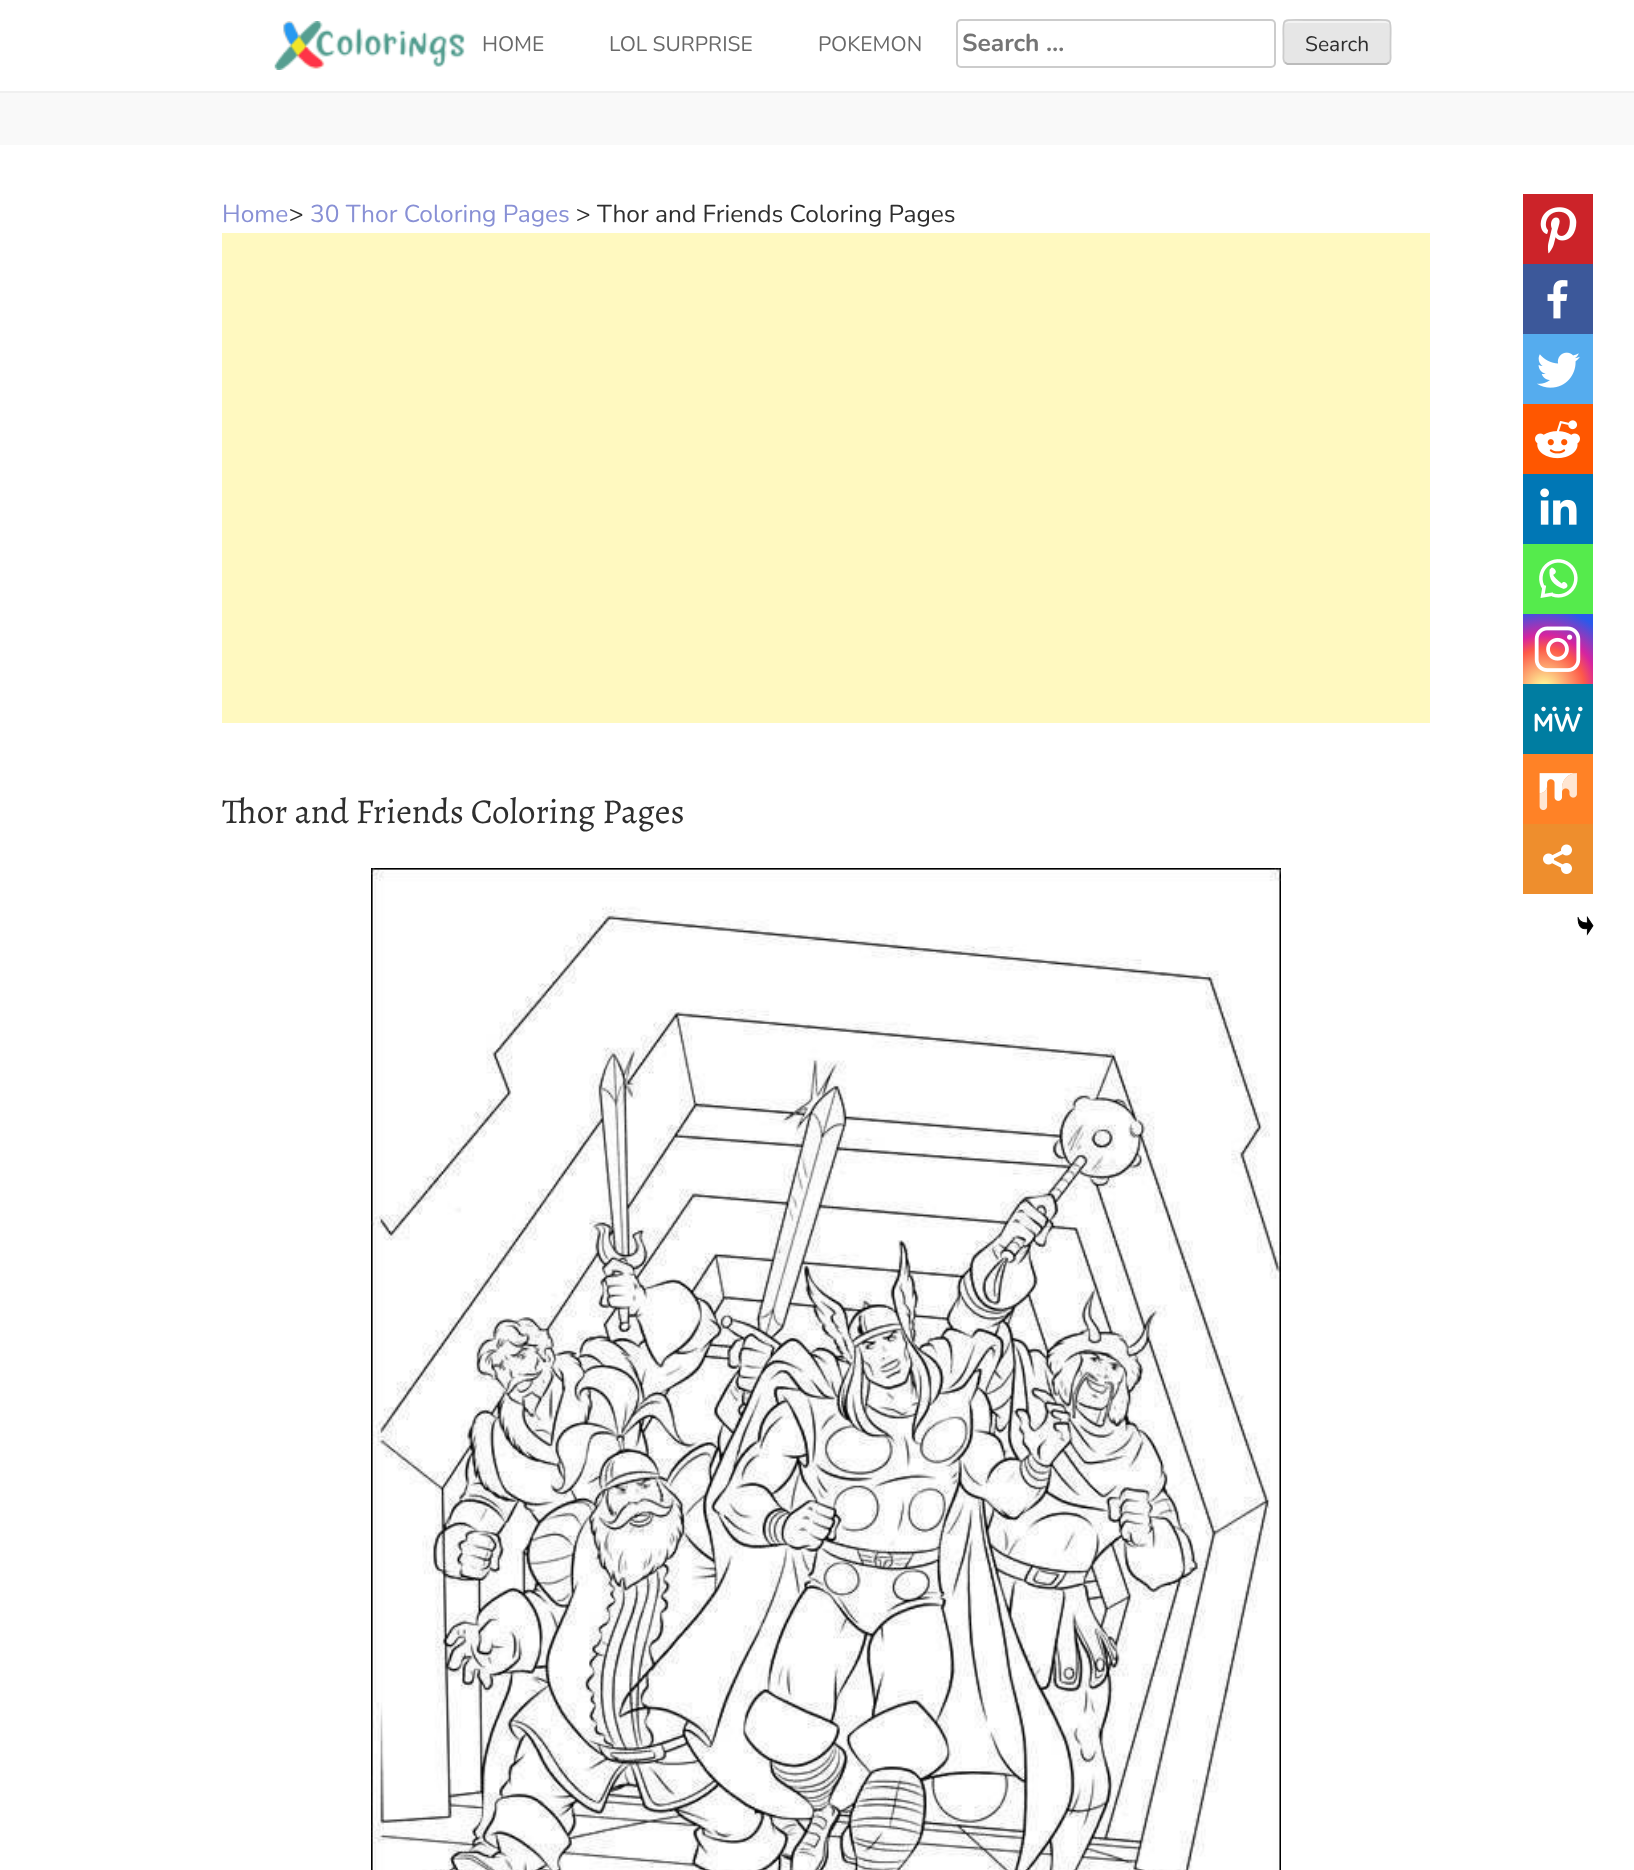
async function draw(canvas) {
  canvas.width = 1634
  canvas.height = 1870
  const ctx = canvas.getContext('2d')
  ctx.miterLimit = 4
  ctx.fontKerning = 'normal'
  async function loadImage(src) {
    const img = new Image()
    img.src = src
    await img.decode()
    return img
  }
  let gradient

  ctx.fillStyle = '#f9f9f9'
  ctx.fillRect(0, 0, 1634, 1870)
  ctx.fillStyle = '#fff'
  ctx.fillRect(0, 0, 1634, 91)
  ctx.fillStyle = '#f0f0f0'
  ctx.fillRect(0, 91, 1634, 2)
  ctx.drawImage(await loadImage('image0.png'), 274, 21, 191, 49)
  ctx.font = '21px Nunito'
  ctx.fillStyle = '#696969'
  ctx.fillText('HOME', 482, 51)
  ctx.fillText('LOL SURPRISE', 609, 51)
  ctx.fillText('POKEMON', 818, 51)
  ctx.beginPath()
  ctx.roundRect(957, 20, 318, 47, 4)
  ctx.strokeStyle = '#ccc'
  ctx.lineWidth = 2
  ctx.stroke()
  ctx.font = 'bold 24.5px Nunito'
  ctx.fillStyle = '#757575'
  ctx.fillText('Search …', 962, 51)
  ctx.fillStyle = '#e6e6e6'
  ctx.beginPath()
  ctx.roundRect(1283, 19, 108, 46, 5)
  ctx.fill()
  ctx.fillStyle = '#f3f3f3'
  ctx.beginPath()
  ctx.moveTo(1288, 23)
  ctx.lineTo(1386, 23)
  ctx.bezierCurveTo(1388, 23, 1390, 24, 1390, 26)
  ctx.lineTo(1390, 25)
  ctx.bezierCurveTo(1390, 23, 1388, 21, 1386, 21)
  ctx.lineTo(1289, 21)
  ctx.bezierCurveTo(1287, 21, 1286, 22, 1285, 24)
  ctx.closePath()
  ctx.fill()
  ctx.beginPath()
  ctx.moveTo(1389, 62.5)
  ctx.lineTo(1386.5, 64)
  ctx.lineTo(1287.5, 64)
  ctx.lineTo(1285, 62.5)
  ctx.strokeStyle = '#bbb'
  ctx.lineWidth = 1.8
  ctx.stroke()
  ctx.beginPath()
  ctx.moveTo(1285, 62.5)
  ctx.bezierCurveTo(1282.5, 60.5, 1283.5, 56, 1283.5, 53.5)
  ctx.lineTo(1283.5, 42)
  ctx.bezierCurveTo(1283.5, 17, 1279.5, 20, 1304.5, 20)
  ctx.lineTo(1369.5, 20)
  ctx.bezierCurveTo(1394.5, 20, 1390.5, 17, 1390.5, 42)
  ctx.lineTo(1390.5, 53.5)
  ctx.bezierCurveTo(1390.5, 56, 1391.5, 60.5, 1389, 62.5)
  ctx.strokeStyle = '#ccc'
  ctx.stroke()
  ctx.font = '21px Nunito'
  ctx.fillStyle = '#2e2e2e'
  ctx.fillText('Search', 1305, 51)
  ctx.fillStyle = '#fff'
  ctx.fillRect(0, 145, 1634, 1725)
  ctx.font = '24.5px Nunito'
  ctx.fillStyle = '#8890d5'
  ctx.fillText('Home', 222, 222)
  ctx.fillStyle = '#2e2e2e'
  ctx.fillText('>', 289, 222)
  ctx.fillStyle = '#8890d5'
  ctx.fillText('30 Thor Coloring Pages', 310, 222)
  ctx.fillStyle = '#2e2e2e'
  ctx.fillText('> Thor and Friends Coloring Pages', 576, 222)
  ctx.fillStyle = '#cc2329'
  ctx.fillRect(1523, 194, 70, 70)
  ctx.drawImage(await loadImage('image1.png'), 1540, 207, 37, 47)
  ctx.fillStyle = '#3c589a'
  ctx.fillRect(1523, 264, 70, 70)
  ctx.drawImage(await loadImage('image2.png'), 1547, 280, 21, 39)
  ctx.fillStyle = '#55acee'
  ctx.fillRect(1523, 334, 70, 70)
  ctx.drawImage(await loadImage('image3.png'), 1537, 352, 43, 36)
  ctx.fillStyle = '#ff5700'
  ctx.fillRect(1523, 404, 70, 70)
  ctx.drawImage(await loadImage('image4.png'), 1535, 420, 45, 39)
  ctx.fillStyle = '#0077b5'
  ctx.fillRect(1523, 474, 70, 70)
  ctx.drawImage(await loadImage('image5.png'), 1540, 488, 37, 37)
  ctx.fillStyle = '#55eb4c'
  ctx.fillRect(1523, 544, 70, 70)
  ctx.drawImage(await loadImage('image6.png'), 1539, 559, 39, 39)
  gradient = ctx.createRadialGradient(1544, 689, 0, 1544, 689, 90)
  gradient.addColorStop(0, '#fdf497')
  gradient.addColorStop(0.05, '#fdf497')
  gradient.addColorStop(0.45, '#fd5949')
  gradient.addColorStop(0.6, '#d6249f')
  gradient.addColorStop(0.9, '#285aeb')
  ctx.fillStyle = gradient
  ctx.fillRect(1523, 614, 70, 70)
  ctx.drawImage(await loadImage('image7.png'), 1534, 626, 47, 46)
  ctx.fillStyle = '#007da1'
  ctx.fillRect(1523, 684, 70, 70)
  ctx.drawImage(await loadImage('image8.png'), 1534, 706, 49, 26)
  ctx.fillStyle = '#ff8226'
  ctx.fillRect(1523, 754, 70, 70)
  ctx.drawImage(await loadImage('image9.png'), 1539, 773, 38, 38)
  ctx.fillStyle = '#ee8e2d'
  ctx.fillRect(1523, 824, 70, 70)
  ctx.drawImage(await loadImage('image10.png'), 1543, 844, 29, 30)
  ctx.drawImage(await loadImage('image11.png'), 1577, 916, 17, 20)
  ctx.drawImage(await loadImage('image12.png'), 371, 868, 910, 1002)
  ctx.fillStyle = '#fff9c0'
  ctx.fillRect(222, 233, 1208, 490)
  ctx.font = '35px Alegreya'
  ctx.fillStyle = '#2e2e2e'
  ctx.fillText('Thor and Friends Coloring Pages', 222, 823)
}

draw(document.querySelector('canvas'))
